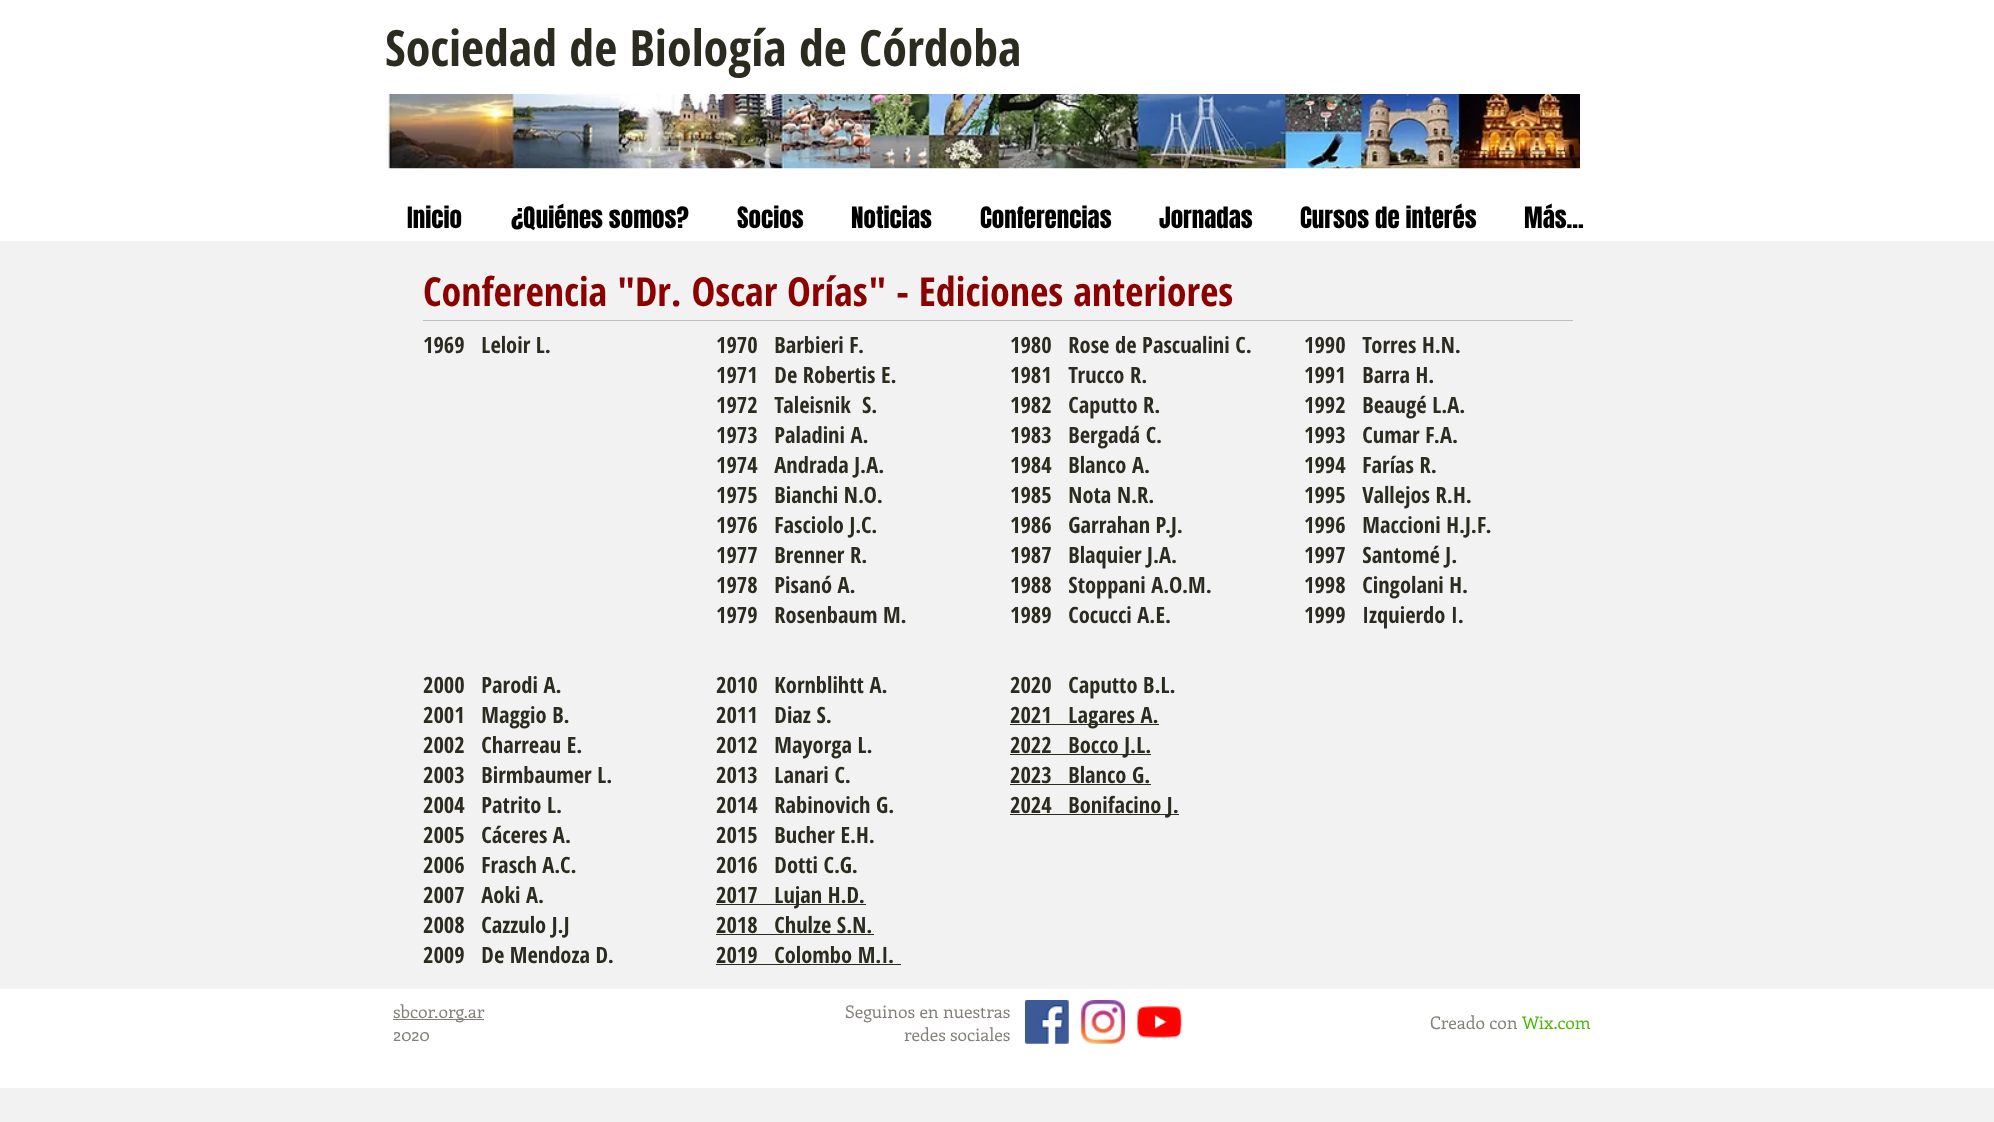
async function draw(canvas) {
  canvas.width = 1994
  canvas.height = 1122
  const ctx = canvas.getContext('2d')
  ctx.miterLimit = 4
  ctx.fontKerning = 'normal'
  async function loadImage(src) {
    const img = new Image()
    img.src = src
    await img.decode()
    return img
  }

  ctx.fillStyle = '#f2f2f2'
  ctx.fillRect(0, 0, 1994, 1122)
  ctx.fillStyle = '#fff'
  ctx.fillRect(0, 0, 1994, 241)
  ctx.font = 'bold 50px Open Sans Condensed'
  ctx.fillStyle = '#2c2b1f'
  ctx.fillText('Sociedad de Biología de Córdoba', 385, 66)
  ctx.drawImage(await loadImage('image0.png'), 385, 94, 1195, 75)
  ctx.font = '25px Anton'
  ctx.fillStyle = '#000'
  ctx.fillText('Inicio', 407, 228)
  ctx.fillText('¿Quiénes somos?', 511, 228)
  ctx.fillText('Socios', 737, 228)
  ctx.fillText('Noticias', 851, 228)
  ctx.fillText('Conferencias', 980, 228)
  ctx.fillText('Jornadas', 1159, 228)
  ctx.fillText('Cursos de interés', 1300, 228)
  ctx.fillText('Más...', 1524, 228)
  ctx.font = 'bold 40px Open Sans Condensed'
  ctx.fillStyle = '#8b0000'
  ctx.fillText('Conferencia "Dr. Oscar Orías" - Ediciones anteriores', 423, 306)
  ctx.fillStyle = '#c1beb8'
  ctx.fillRect(423, 320, 1150, 1)
  ctx.font = 'bold 22.5px Open Sans Condensed'
  ctx.fillStyle = '#2c2b1f'
  ctx.fillText('1969   Leloir L.', 423, 353)
  ctx.fillText('1970   Barbieri F.', 716, 353)
  ctx.fillText('1971   De Robertis E.', 716, 383)
  ctx.fillText('1972   Taleisnik  S.', 716, 413)
  ctx.fillText('1973   Paladini A.', 716, 443)
  ctx.fillText('1974   Andrada J.A.', 716, 473)
  ctx.fillText('1975   Bianchi N.O.', 716, 503)
  ctx.fillText('1976   Fasciolo J.C.', 716, 533)
  ctx.fillText('1977   Brenner R.', 716, 563)
  ctx.fillText('1978   Pisanó A.', 716, 593)
  ctx.fillText('1979   Rosenbaum M.', 716, 623)
  ctx.fillText('1980   Rose de Pascualini C.', 1010, 353)
  ctx.fillText('1981   Trucco R.', 1010, 383)
  ctx.fillText('1982   Caputto R.', 1010, 413)
  ctx.fillText('1983   Bergadá C.', 1010, 443)
  ctx.fillText('1984   Blanco A.', 1010, 473)
  ctx.fillText('1985   Nota N.R.', 1010, 503)
  ctx.fillText('1986   Garrahan P.J.', 1010, 533)
  ctx.fillText('1987   Blaquier J.A.', 1010, 563)
  ctx.fillText('1988   Stoppani A.O.M.', 1010, 593)
  ctx.fillText('1989   Cocucci A.E.', 1010, 623)
  ctx.fillText('1990   Torres H.N.', 1304, 353)
  ctx.fillText('1991   Barra H.', 1304, 383)
  ctx.fillText('1992   Beaugé L.A.', 1304, 413)
  ctx.fillText('1993   Cumar F.A.', 1304, 443)
  ctx.fillText('1994   Farías R.', 1304, 473)
  ctx.fillText('1995   Vallejos R.H.', 1304, 503)
  ctx.fillText('1996   Maccioni H.J.F.', 1304, 533)
  ctx.fillText('1997   Santomé J.', 1304, 563)
  ctx.fillText('1998   Cingolani H.', 1304, 593)
  ctx.fillText('1999   Izquierdo I.', 1304, 623)
  ctx.fillText('2000   Parodi A.', 423, 693)
  ctx.fillText('2001   Maggio B.', 423, 723)
  ctx.fillText('2002   Charreau E.', 423, 753)
  ctx.fillText('2003   Birmbaumer L.', 423, 783)
  ctx.fillText('2004   Patrito L.', 423, 813)
  ctx.fillText('2005   Cáceres A.', 423, 843)
  ctx.fillText('2006   Frasch A.C.', 423, 873)
  ctx.fillText('2007   Aoki A.', 423, 903)
  ctx.fillText('2008   Cazzulo J.J', 423, 933)
  ctx.fillText('2009   De Mendoza D.', 423, 963)
  ctx.fillText('2010   Kornblihtt A.', 716, 693)
  ctx.fillText('2011   Diaz S.', 716, 723)
  ctx.fillText('2012   Mayorga L.', 716, 753)
  ctx.fillText('2013   Lanari C.', 716, 783)
  ctx.fillText('2014   Rabinovich G.', 716, 813)
  ctx.fillText('2015   Bucher E.H.', 716, 843)
  ctx.fillText('2016   Dotti C.G.', 716, 873)
  ctx.fillRect(716, 904, 150, 1)
  ctx.fillText('2017   Lujan H.D.', 716, 903)
  ctx.fillText('2018   Chulze S.N.', 716, 933)
  ctx.fillRect(716, 934, 158, 1)
  ctx.fillText('2019   Colombo M.I.', 716, 963)
  ctx.fillRect(716, 964, 185, 1)
  ctx.fillText('2020   Caputto B.L.', 1010, 693)
  ctx.fillRect(1010, 724, 149, 1)
  ctx.fillText('2021   Lagares A.', 1010, 723)
  ctx.fillRect(1010, 754, 141, 1)
  ctx.fillText('2022   Bocco J.L.', 1010, 753)
  ctx.fillText('2023   Blanco G.', 1010, 783)
  ctx.fillRect(1010, 784, 141, 1)
  ctx.fillRect(1010, 814, 169, 1)
  ctx.fillText('2024   Bonifacino J.', 1010, 813)
  ctx.fillStyle = '#fff'
  ctx.fillRect(0, 989, 1994, 99)
  ctx.fillStyle = '#848079'
  ctx.fillRect(393, 1019, 91, 1)
  ctx.font = '17.5px Enriqueta'
  ctx.fillText('sbcor.org.ar', 393, 1018)
  ctx.fillText('2020', 393, 1041)
  ctx.fillText('Seguinos en nuestras', 845, 1018)
  ctx.fillText('redes sociales', 904, 1041)
  ctx.drawImage(await loadImage('image1.png'), 1025, 1000, 44, 44)
  ctx.drawImage(await loadImage('image2.png'), 1081, 1000, 44, 44)
  ctx.drawImage(await loadImage('image3.png'), 1137, 1006, 45, 32)
  ctx.fillText('Creado con', 1430, 1029)
  ctx.fillStyle = '#45ba01'
  ctx.fillText('Wix.com', 1522, 1029)
}

draw(document.querySelector('canvas'))
